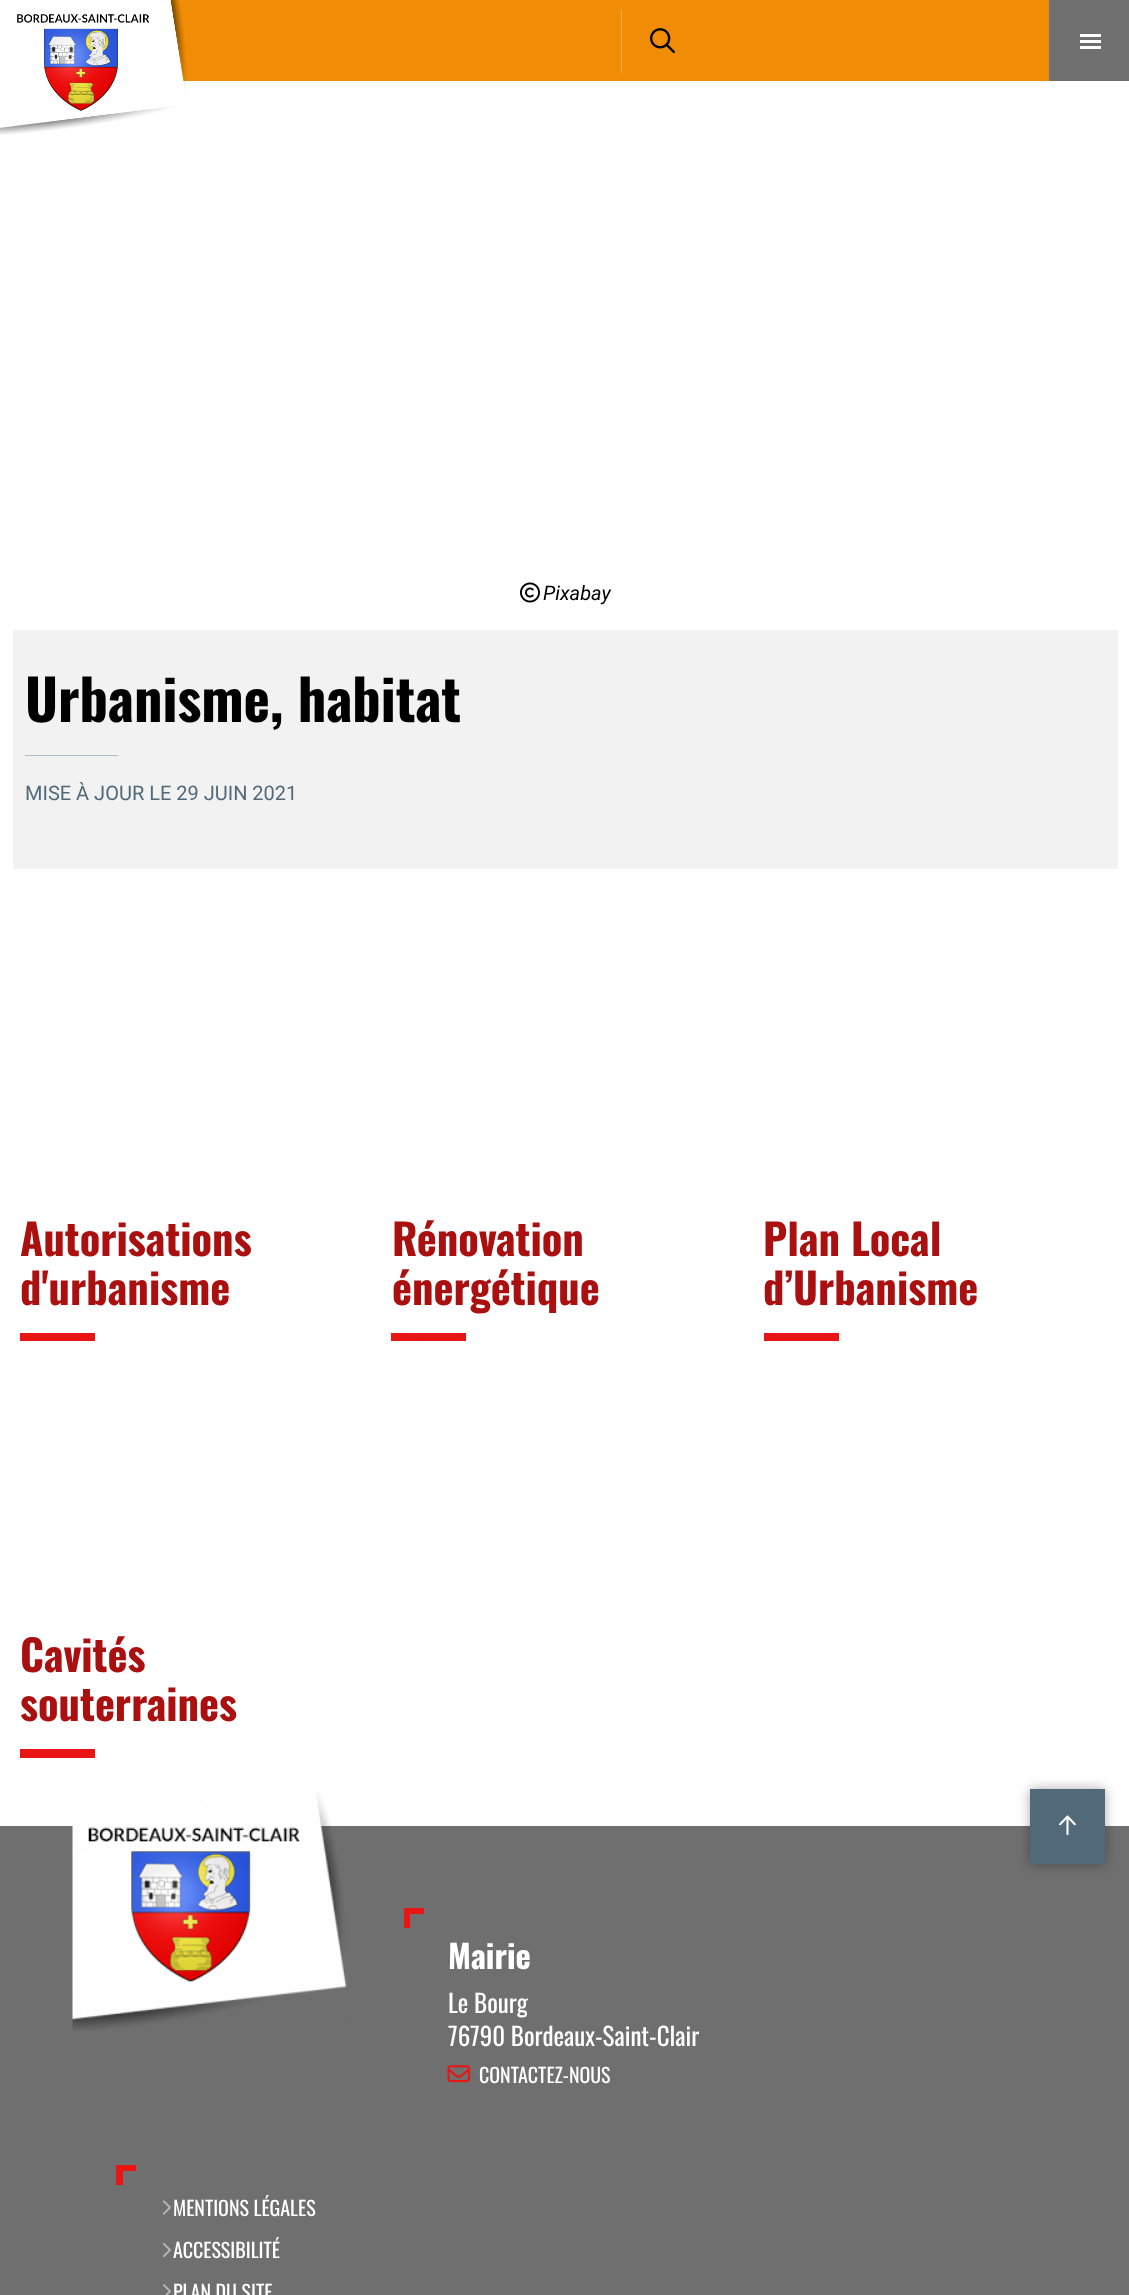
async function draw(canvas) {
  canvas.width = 1129
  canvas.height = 2295
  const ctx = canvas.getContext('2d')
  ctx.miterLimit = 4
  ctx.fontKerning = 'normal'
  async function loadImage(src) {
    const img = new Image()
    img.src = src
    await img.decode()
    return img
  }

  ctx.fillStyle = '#fff'
  ctx.fillRect(0, 0, 1129, 2295)
  ctx.fillStyle = '#f08c05'
  ctx.fillRect(170, 0, 879, 81)
  ctx.drawImage(await loadImage('image0.png'), 0, 0, 187, 135)
  ctx.fillStyle = '#f5af50'
  ctx.fillRect(621, 10, 1, 63)
  ctx.drawImage(await loadImage('image1.png'), 650, 28, 25, 26)
  ctx.fillStyle = '#706f6f'
  ctx.fillRect(1049, 0, 80, 81)
  ctx.fillStyle = '#fff'
  ctx.fillRect(1080, 34, 21, 3)
  ctx.fillRect(1080, 40, 21, 3)
  ctx.fillRect(1080, 46, 21, 3)
  ctx.drawImage(await loadImage('image2.png'), 520, 582, 20, 21)
  ctx.font = 'italic 20px Roboto'
  ctx.fillStyle = '#000'
  ctx.fillText('Pixabay', 543, 600)
  ctx.fillStyle = '#f2f2f2'
  ctx.fillRect(13, 630, 1105, 239)
  ctx.font = 'bold 56.25px Oswald'
  ctx.fillStyle = '#000'
  ctx.fillText('Urbanisme, habitat', 25, 722)
  ctx.fillStyle = '#a9bec5'
  ctx.fillRect(25, 755, 93, 1)
  ctx.font = '20px Roboto'
  ctx.fillStyle = '#516979'
  ctx.fillText('MISE À JOUR LE 29 JUIN 2021', 25, 800)
  ctx.font = 'bold 42.5px Oswald'
  ctx.fillStyle = '#ab1010'
  ctx.fillText('Autorisations', 20, 1256)
  ctx.fillText('d\'urbanisme', 20, 1305)
  ctx.fillStyle = '#e91414'
  ctx.fillRect(20, 1333, 75, 8)
  ctx.fillStyle = '#ab1010'
  ctx.fillText('Rénovation', 392, 1256)
  ctx.fillText('énergétique', 392, 1305)
  ctx.fillStyle = '#e91414'
  ctx.fillRect(391, 1333, 75, 8)
  ctx.fillStyle = '#ab1010'
  ctx.fillText('Plan Local', 763, 1256)
  ctx.fillText('d’Urbanisme', 763, 1305)
  ctx.fillStyle = '#e91414'
  ctx.fillRect(764, 1333, 75, 8)
  ctx.fillStyle = '#ab1010'
  ctx.fillText('Cavités', 20, 1672)
  ctx.fillText('souterraines', 20, 1721)
  ctx.fillStyle = '#e91414'
  ctx.fillRect(20, 1749, 75, 9)
  ctx.fillStyle = '#706f6f'
  ctx.fillRect(0, 1826, 1129, 469)
  ctx.fillStyle = '#00000057'
  ctx.filter = 'blur(6px)'
  ctx.beginPath()
  ctx.rect(1030, 1789, 75, 75)
  ctx.fill()
  ctx.filter = 'none'
  ctx.fillStyle = '#516979'
  ctx.fillRect(1030, 1789, 75, 75)
  ctx.drawImage(await loadImage('image3.png'), 1059, 1815, 17, 21)
  ctx.drawImage(await loadImage('image4.png'), 72, 1792, 275, 239)
  ctx.fillStyle = '#e91414'
  ctx.fillRect(404, 1908, 20, 6)
  ctx.fillRect(404, 1908, 6, 20)
  ctx.font = 'bold 32.5px Oswald'
  ctx.fillStyle = '#fff'
  ctx.fillText('Mairie', 448, 1969)
  ctx.font = '25px Oswald'
  ctx.fillText('Le Bourg', 448, 2013)
  ctx.fillText('76790 Bordeaux-Saint-Clair', 448, 2046)
  ctx.drawImage(await loadImage('image5.png'), 447, 2065, 23, 18)
  ctx.font = '20px Oswald'
  ctx.fillText('CONTACTEZ-NOUS', 479, 2083)
  ctx.fillStyle = '#e91414'
  ctx.fillRect(116, 2165, 20, 6)
  ctx.fillRect(116, 2165, 7, 20)
  ctx.drawImage(await loadImage('image6.png'), 162, 2200, 9, 15)
  ctx.fillStyle = '#fff'
  ctx.fillText('MENTIONS LÉGALES', 173, 2216)
  ctx.drawImage(await loadImage('image7.png'), 162, 2242, 9, 16)
  ctx.fillText('ACCESSIBILITÉ', 173, 2258)
  ctx.drawImage(await loadImage('image8.png'), 163, 2284, 8, 11)
  ctx.fillText('PLAN DU SITE', 173, 2300)
}

draw(document.querySelector('canvas'))
